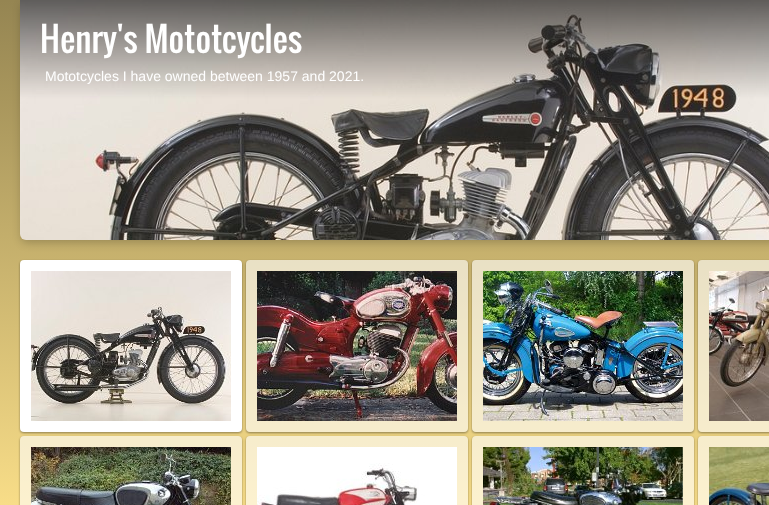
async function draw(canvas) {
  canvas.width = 769
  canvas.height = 505
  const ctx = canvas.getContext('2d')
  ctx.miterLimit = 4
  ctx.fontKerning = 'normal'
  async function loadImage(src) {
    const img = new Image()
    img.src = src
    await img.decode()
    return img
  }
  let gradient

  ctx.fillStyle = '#fff'
  ctx.fillRect(0, 0, 769, 505)
  gradient = ctx.createLinearGradient(384, 0, 385, 505)
  gradient.addColorStop(0, '#958552')
  gradient.addColorStop(1, '#f8dd88')
  ctx.fillStyle = gradient
  ctx.fillRect(0, 0, 769, 505)
  ctx.fillStyle = '#00000033'
  ctx.filter = 'blur(4px)'
  ctx.beginPath()
  ctx.roundRect(21, 3, 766, 240, 6)
  ctx.fill()
  ctx.filter = 'none'
  ctx.drawImage(await loadImage('image0.png'), 20, 0, 749, 240)
  ctx.font = '33.5px Oswald'
  ctx.fillStyle = '#fff'
  ctx.fillText('Henry\'s Mototcycles', 40, 53)
  ctx.font = '14px Liberation Sans'
  ctx.fillText('Mototcycles I have owned between 1957 and 2021.', 45, 81)
  ctx.fillStyle = '#00000066'
  ctx.filter = 'blur(1px)'
  ctx.beginPath()
  ctx.roundRect(20, 261, 222, 172, 4)
  ctx.fill()
  ctx.filter = 'none'
  ctx.fillStyle = '#fff'
  ctx.beginPath()
  ctx.roundRect(20, 260, 222, 172, 4)
  ctx.fill()
  ctx.drawImage(await loadImage('image1.png'), 31, 271, 200, 150)
  ctx.save()
  ctx.beginPath()
  ctx.moveTo(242, 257)
  ctx.lineTo(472, 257)
  ctx.lineTo(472, 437)
  ctx.lineTo(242, 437)
  ctx.closePath()
  ctx.moveTo(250, 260)
  ctx.lineTo(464, 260)
  ctx.bezierCurveTo(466, 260, 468, 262, 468, 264)
  ctx.lineTo(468, 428)
  ctx.bezierCurveTo(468, 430, 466, 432, 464, 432)
  ctx.lineTo(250, 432)
  ctx.bezierCurveTo(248, 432, 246, 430, 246, 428)
  ctx.lineTo(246, 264)
  ctx.bezierCurveTo(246, 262, 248, 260, 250, 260)
  ctx.closePath()
  ctx.clip('evenodd')
  ctx.fillStyle = '#00000066'
  ctx.filter = 'blur(1px)'
  ctx.beginPath()
  ctx.roundRect(246, 261, 222, 172, 4)
  ctx.fill()
  ctx.filter = 'none'
  ctx.restore()
  ctx.fillStyle = '#ffffff99'
  ctx.beginPath()
  ctx.roundRect(246, 260, 222, 172, 4)
  ctx.fill()
  ctx.drawImage(await loadImage('image2.png'), 257, 271, 200, 150)
  ctx.save()
  ctx.beginPath()
  ctx.moveTo(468, 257)
  ctx.lineTo(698, 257)
  ctx.lineTo(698, 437)
  ctx.lineTo(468, 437)
  ctx.closePath()
  ctx.moveTo(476, 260)
  ctx.lineTo(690, 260)
  ctx.bezierCurveTo(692, 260, 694, 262, 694, 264)
  ctx.lineTo(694, 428)
  ctx.bezierCurveTo(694, 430, 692, 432, 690, 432)
  ctx.lineTo(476, 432)
  ctx.bezierCurveTo(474, 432, 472, 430, 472, 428)
  ctx.lineTo(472, 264)
  ctx.bezierCurveTo(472, 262, 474, 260, 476, 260)
  ctx.closePath()
  ctx.clip('evenodd')
  ctx.fillStyle = '#00000066'
  ctx.filter = 'blur(1px)'
  ctx.beginPath()
  ctx.roundRect(472, 261, 222, 172, 4)
  ctx.fill()
  ctx.filter = 'none'
  ctx.restore()
  ctx.beginPath()
  ctx.roundRect(472, 260, 222, 172, 4)
  ctx.fill()
  ctx.drawImage(await loadImage('image3.png'), 483, 271, 200, 150)
  ctx.save()
  ctx.beginPath()
  ctx.moveTo(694, 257)
  ctx.lineTo(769, 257)
  ctx.lineTo(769, 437)
  ctx.lineTo(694, 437)
  ctx.closePath()
  ctx.moveTo(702, 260)
  ctx.lineTo(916, 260)
  ctx.bezierCurveTo(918, 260, 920, 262, 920, 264)
  ctx.lineTo(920, 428)
  ctx.bezierCurveTo(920, 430, 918, 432, 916, 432)
  ctx.lineTo(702, 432)
  ctx.bezierCurveTo(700, 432, 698, 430, 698, 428)
  ctx.lineTo(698, 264)
  ctx.bezierCurveTo(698, 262, 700, 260, 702, 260)
  ctx.closePath()
  ctx.clip('evenodd')
  ctx.fillStyle = '#00000066'
  ctx.filter = 'blur(1px)'
  ctx.beginPath()
  ctx.roundRect(698, 261, 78, 172, 4)
  ctx.fill()
  ctx.filter = 'none'
  ctx.restore()
  ctx.beginPath()
  ctx.roundRect(698, 260, 71, 172, [4, 0, 0, 4])
  ctx.fill()
  ctx.drawImage(await loadImage('image4.png'), 709, 271, 60, 150)
  ctx.save()
  ctx.beginPath()
  ctx.moveTo(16, 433)
  ctx.lineTo(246, 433)
  ctx.lineTo(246, 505)
  ctx.lineTo(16, 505)
  ctx.closePath()
  ctx.moveTo(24, 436)
  ctx.lineTo(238, 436)
  ctx.bezierCurveTo(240, 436, 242, 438, 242, 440)
  ctx.lineTo(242, 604)
  ctx.bezierCurveTo(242, 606, 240, 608, 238, 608)
  ctx.lineTo(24, 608)
  ctx.bezierCurveTo(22, 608, 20, 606, 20, 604)
  ctx.lineTo(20, 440)
  ctx.bezierCurveTo(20, 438, 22, 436, 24, 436)
  ctx.closePath()
  ctx.clip('evenodd')
  ctx.fillStyle = '#00000066'
  ctx.filter = 'blur(1px)'
  ctx.beginPath()
  ctx.roundRect(20, 437, 222, 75, 4)
  ctx.fill()
  ctx.filter = 'none'
  ctx.restore()
  ctx.beginPath()
  ctx.roundRect(20, 436, 222, 69, [4, 4, 0, 0])
  ctx.fill()
  ctx.drawImage(await loadImage('image5.png'), 31, 447, 200, 58)
  ctx.save()
  ctx.beginPath()
  ctx.moveTo(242, 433)
  ctx.lineTo(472, 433)
  ctx.lineTo(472, 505)
  ctx.lineTo(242, 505)
  ctx.closePath()
  ctx.moveTo(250, 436)
  ctx.lineTo(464, 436)
  ctx.bezierCurveTo(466, 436, 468, 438, 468, 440)
  ctx.lineTo(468, 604)
  ctx.bezierCurveTo(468, 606, 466, 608, 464, 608)
  ctx.lineTo(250, 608)
  ctx.bezierCurveTo(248, 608, 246, 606, 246, 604)
  ctx.lineTo(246, 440)
  ctx.bezierCurveTo(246, 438, 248, 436, 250, 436)
  ctx.closePath()
  ctx.clip('evenodd')
  ctx.fillStyle = '#00000066'
  ctx.filter = 'blur(1px)'
  ctx.beginPath()
  ctx.roundRect(246, 437, 222, 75, 4)
  ctx.fill()
  ctx.filter = 'none'
  ctx.restore()
  ctx.beginPath()
  ctx.roundRect(246, 436, 222, 69, [4, 4, 0, 0])
  ctx.fill()
  ctx.drawImage(await loadImage('image6.png'), 257, 447, 200, 58)
  ctx.save()
  ctx.beginPath()
  ctx.moveTo(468, 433)
  ctx.lineTo(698, 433)
  ctx.lineTo(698, 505)
  ctx.lineTo(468, 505)
  ctx.closePath()
  ctx.moveTo(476, 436)
  ctx.lineTo(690, 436)
  ctx.bezierCurveTo(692, 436, 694, 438, 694, 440)
  ctx.lineTo(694, 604)
  ctx.bezierCurveTo(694, 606, 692, 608, 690, 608)
  ctx.lineTo(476, 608)
  ctx.bezierCurveTo(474, 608, 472, 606, 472, 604)
  ctx.lineTo(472, 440)
  ctx.bezierCurveTo(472, 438, 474, 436, 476, 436)
  ctx.closePath()
  ctx.clip('evenodd')
  ctx.fillStyle = '#00000066'
  ctx.filter = 'blur(1px)'
  ctx.beginPath()
  ctx.roundRect(472, 437, 222, 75, 4)
  ctx.fill()
  ctx.filter = 'none'
  ctx.restore()
  ctx.beginPath()
  ctx.roundRect(472, 436, 222, 69, [4, 4, 0, 0])
  ctx.fill()
  ctx.drawImage(await loadImage('image7.png'), 483, 447, 200, 58)
  ctx.save()
  ctx.beginPath()
  ctx.moveTo(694, 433)
  ctx.lineTo(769, 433)
  ctx.lineTo(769, 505)
  ctx.lineTo(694, 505)
  ctx.closePath()
  ctx.moveTo(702, 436)
  ctx.lineTo(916, 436)
  ctx.bezierCurveTo(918, 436, 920, 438, 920, 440)
  ctx.lineTo(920, 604)
  ctx.bezierCurveTo(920, 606, 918, 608, 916, 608)
  ctx.lineTo(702, 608)
  ctx.bezierCurveTo(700, 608, 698, 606, 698, 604)
  ctx.lineTo(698, 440)
  ctx.bezierCurveTo(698, 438, 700, 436, 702, 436)
  ctx.closePath()
  ctx.clip('evenodd')
  ctx.fillStyle = '#00000066'
  ctx.filter = 'blur(1px)'
  ctx.beginPath()
  ctx.roundRect(698, 437, 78, 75, 4)
  ctx.fill()
  ctx.filter = 'none'
  ctx.restore()
  ctx.beginPath()
  ctx.roundRect(698, 436, 71, 69, [4, 0, 0, 0])
  ctx.fill()
  ctx.drawImage(await loadImage('image8.png'), 709, 447, 60, 58)
}

draw(document.querySelector('canvas'))
